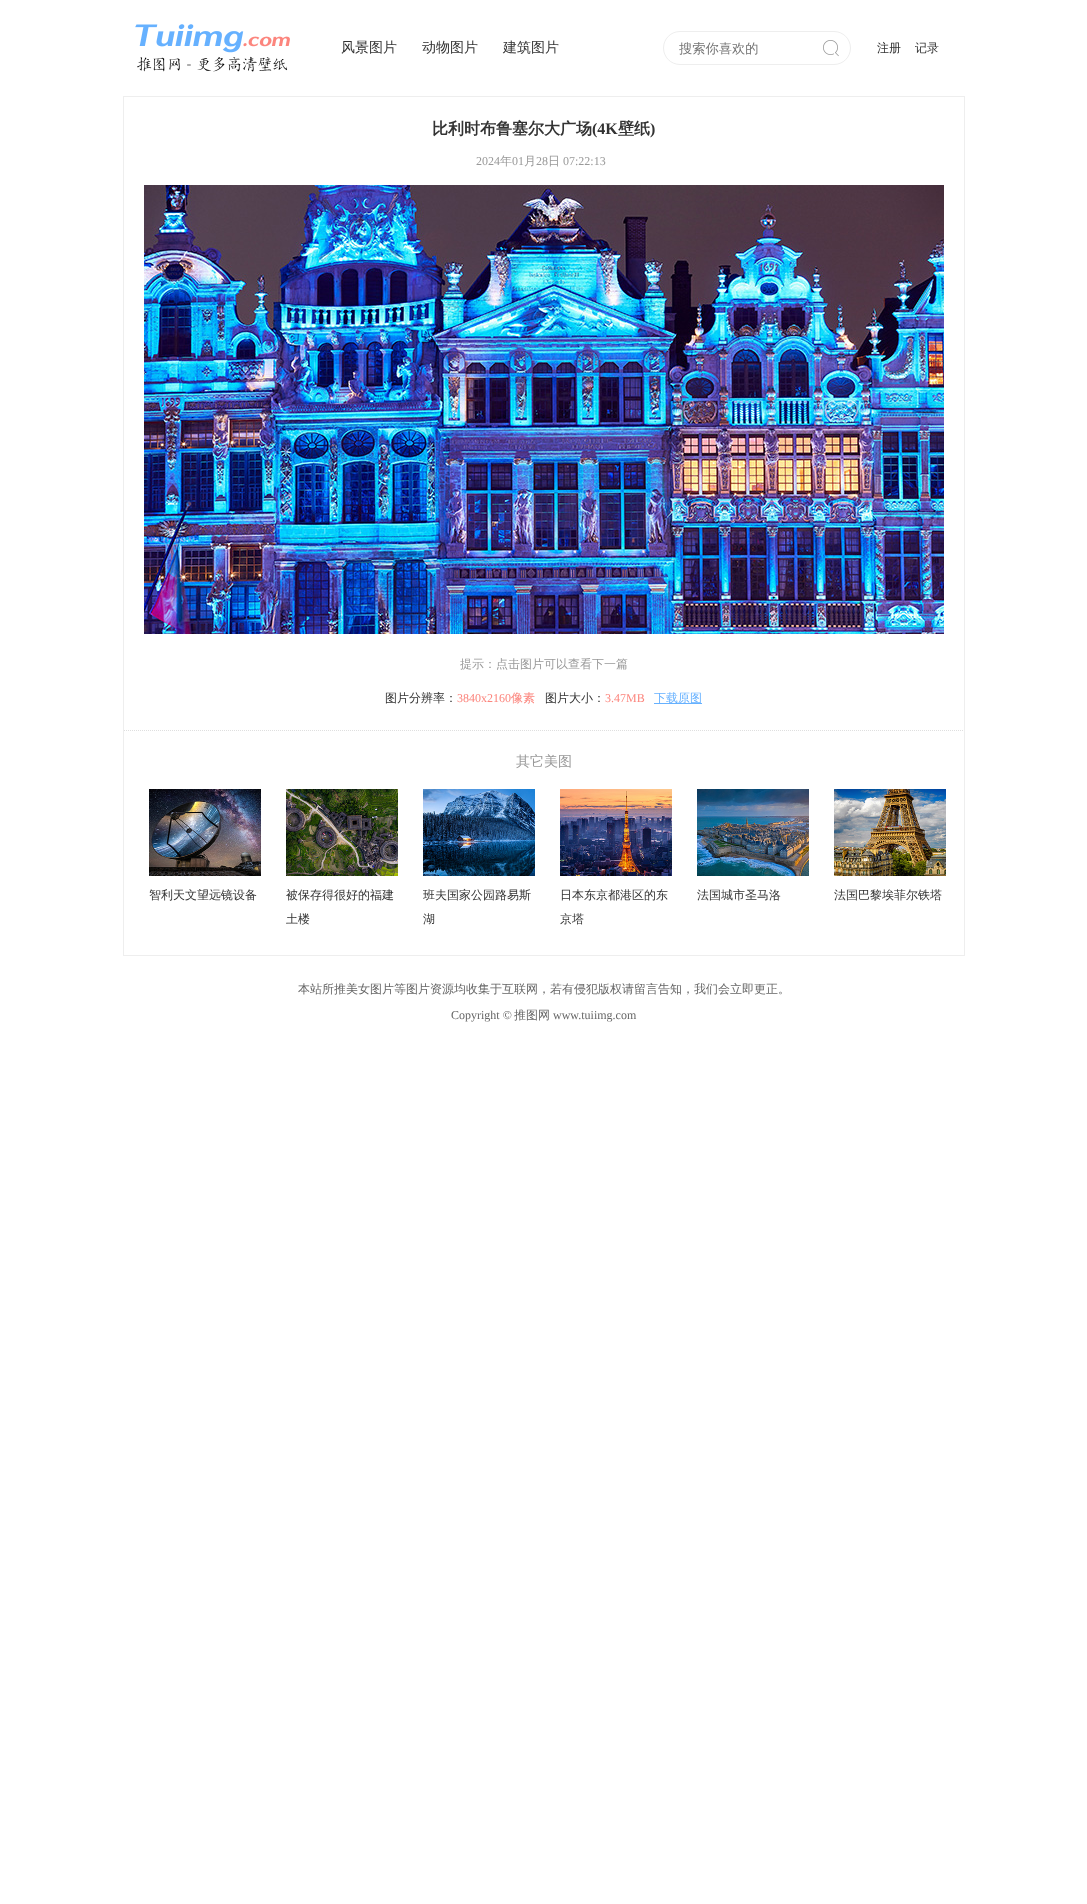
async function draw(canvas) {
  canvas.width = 1087
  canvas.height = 1904
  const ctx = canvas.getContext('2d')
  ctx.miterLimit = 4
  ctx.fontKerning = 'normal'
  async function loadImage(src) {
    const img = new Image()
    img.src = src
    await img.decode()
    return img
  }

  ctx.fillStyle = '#fff'
  ctx.fillRect(0, 0, 1087, 1904)
  ctx.drawImage(await loadImage('image0.png'), 135, 24, 155, 48)
  ctx.font = '500 14px WenQuanYi Zen Hei'
  ctx.fillStyle = '#333'
  ctx.fillText('风景图片', 341, 52)
  ctx.fillText('动物图片', 422, 52)
  ctx.fillText('建筑图片', 503, 52)
  ctx.beginPath()
  ctx.roundRect(663.5, 31.5, 187, 33, 16.5)
  ctx.strokeStyle = '#eee'
  ctx.stroke()
  ctx.font = '500 13.25px WenQuanYi Zen Hei'
  ctx.fillStyle = '#757575'
  ctx.fillText('搜索你喜欢的', 679, 53)
  ctx.drawImage(await loadImage('image1.png'), 823, 40, 16, 17)
  ctx.font = '500 12px WenQuanYi Zen Hei'
  ctx.fillStyle = '#333'
  ctx.fillText('注册', 877, 52)
  ctx.fillText('记录', 915, 52)
  ctx.fillStyle = '#eee'
  ctx.fillRect(123, 96, 842, 1)
  ctx.fillRect(964, 96, 1, 860)
  ctx.fillRect(123, 96, 1, 634)
  ctx.font = 'bold 16px WenQuanYi Zen Hei'
  ctx.fillStyle = '#333'
  ctx.fillText('比利时布鲁塞尔大广场', 432, 134)
  ctx.font = 'bold 16px Liberation Serif'
  ctx.fillText('(4K', 592, 134)
  ctx.font = 'bold 16px WenQuanYi Zen Hei'
  ctx.fillText('壁纸', 618, 134)
  ctx.font = 'bold 16px Liberation Serif'
  ctx.fillText(')', 650, 134)
  ctx.font = '12px Liberation Serif'
  ctx.fillStyle = '#999'
  ctx.fillText('2024', 476, 165)
  ctx.font = '500 12px WenQuanYi Zen Hei'
  ctx.fillText('年', 500, 165)
  ctx.font = '12px Liberation Serif'
  ctx.fillText('01', 512, 165)
  ctx.font = '500 12px WenQuanYi Zen Hei'
  ctx.fillText('月', 524, 165)
  ctx.font = '12px Liberation Serif'
  ctx.fillText('28', 536, 165)
  ctx.font = '500 12px WenQuanYi Zen Hei'
  ctx.fillText('日', 548, 165)
  ctx.font = '12px Liberation Serif'
  ctx.fillText('07:22:13', 563, 165)
  ctx.drawImage(await loadImage('image2.png'), 144, 185, 800, 449)
  ctx.font = '500 12px WenQuanYi Zen Hei'
  ctx.fillText('提示：点击图片可以查看下一篇', 460, 668)
  ctx.fillStyle = '#333'
  ctx.fillText('图片分辨率：', 385, 702)
  ctx.font = '12px Liberation Serif'
  ctx.fillStyle = '#fc857d'
  ctx.fillText('3840x2160', 457, 702)
  ctx.font = '500 12px WenQuanYi Zen Hei'
  ctx.fillText('像素', 511, 702)
  ctx.fillStyle = '#333'
  ctx.fillText('图片大小：', 545, 702)
  ctx.font = '12px Liberation Serif'
  ctx.fillStyle = '#fc857d'
  ctx.fillText('3.47MB', 605, 702)
  ctx.fillStyle = '#66b1ff'
  ctx.fillRect(654, 703, 48, 1)
  ctx.font = '500 12px WenQuanYi Zen Hei'
  ctx.fillText('下载原图', 654, 702)
  ctx.fillStyle = '#eee'
  ctx.fillRect(123, 955, 842, 1)
  ctx.fillRect(123, 730, 1, 226)
  ctx.beginPath()
  ctx.moveTo(124, 730.5)
  ctx.lineTo(964, 730.5)
  ctx.strokeStyle = '#dfdfdf'
  ctx.setLineDash([1, 1])
  ctx.stroke()
  ctx.font = '500 14px WenQuanYi Zen Hei'
  ctx.fillStyle = '#999'
  ctx.fillText('其它美图', 516, 766)
  ctx.drawImage(await loadImage('image3.png'), 149, 789, 112, 87)
  ctx.font = '500 12px WenQuanYi Zen Hei'
  ctx.fillStyle = '#333'
  ctx.fillText('智利天文望远镜设备', 149, 899)
  ctx.drawImage(await loadImage('image4.png'), 286, 789, 112, 87)
  ctx.fillText('被保存得很好的福建', 286, 899)
  ctx.fillText('土楼', 286, 923)
  ctx.drawImage(await loadImage('image5.png'), 423, 789, 112, 87)
  ctx.fillText('班夫国家公园路易斯', 423, 899)
  ctx.fillText('湖', 423, 923)
  ctx.drawImage(await loadImage('image6.png'), 560, 789, 112, 87)
  ctx.fillText('日本东京都港区的东', 560, 899)
  ctx.fillText('京塔', 560, 923)
  ctx.drawImage(await loadImage('image7.png'), 697, 789, 112, 87)
  ctx.fillText('法国城市圣马洛', 697, 899)
  ctx.drawImage(await loadImage('image8.png'), 834, 789, 112, 87)
  ctx.fillText('法国巴黎埃菲尔铁塔', 834, 899)
  ctx.fillStyle = '#666'
  ctx.fillText('本站所推美女图片等图片资源均收集于互联网，若有侵犯版权请留言告知，我们会立即更正。', 298, 993)
  ctx.font = '12px Liberation Serif'
  ctx.fillText('Copyright ©', 451, 1019)
  ctx.font = '500 12px WenQuanYi Zen Hei'
  ctx.fillText('推图网', 514, 1019)
  ctx.font = '12px Liberation Serif'
  ctx.fillText('www.tuiimg.com', 553, 1019)
}

draw(document.querySelector('canvas'))
